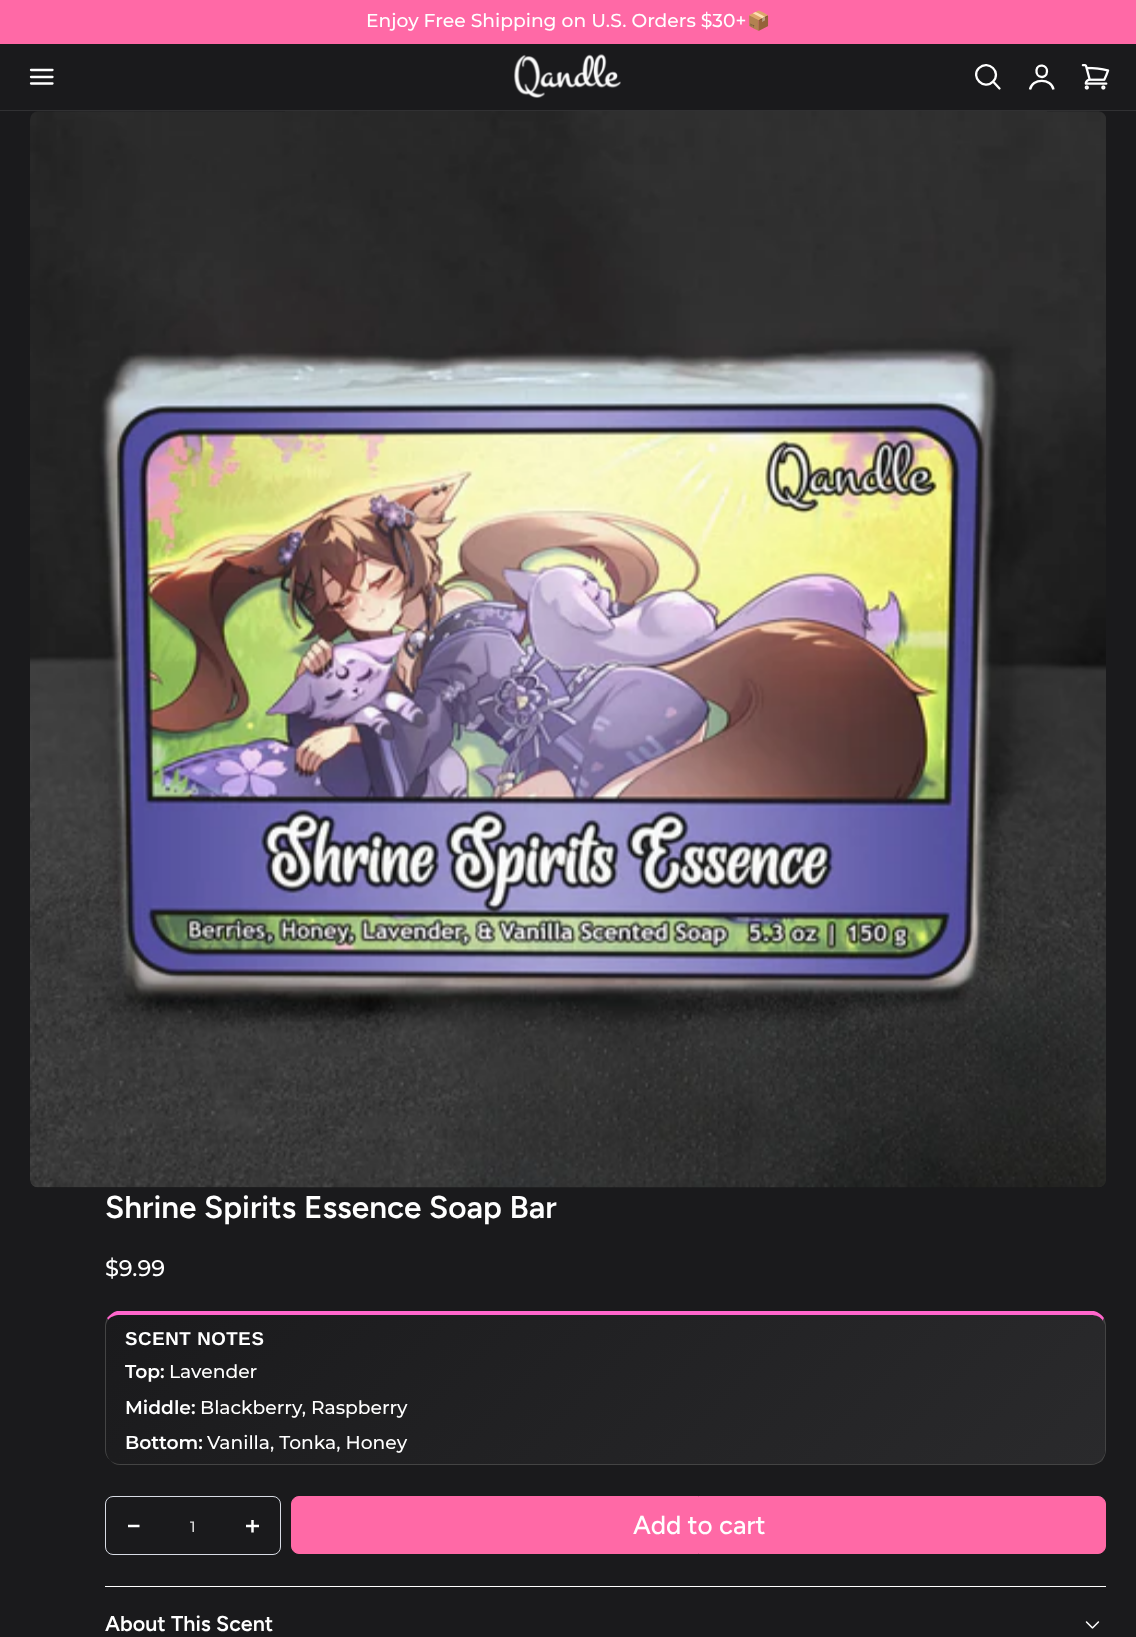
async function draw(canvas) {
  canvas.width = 1136
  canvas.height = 1637
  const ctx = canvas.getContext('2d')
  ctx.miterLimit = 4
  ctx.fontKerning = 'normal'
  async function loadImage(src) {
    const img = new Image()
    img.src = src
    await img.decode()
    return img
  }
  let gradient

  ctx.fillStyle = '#1a1a1c'
  ctx.fillRect(0, 0, 1136, 1637)
  ctx.fillStyle = '#ff69a6'
  ctx.fillRect(0, 0, 1136, 44)
  ctx.font = '500 18.7px Montserrat'
  ctx.fillStyle = '#fff'
  ctx.fillText('Enjoy Free Shipping on U.S. Orders $30+', 366, 27)
  ctx.font = '18.7px Noto Color Emoji'
  ctx.fillText('📦', 747, 27)
  ctx.fillStyle = '#313133'
  ctx.fillRect(0, 110, 1136, 1)
  ctx.beginPath()
  ctx.moveTo(31, 70)
  ctx.lineTo(52.5, 70)
  ctx.moveTo(31, 77)
  ctx.lineTo(52.5, 77)
  ctx.moveTo(31, 83.5)
  ctx.lineTo(52.5, 83.5)
  ctx.strokeStyle = '#fff'
  ctx.lineWidth = 2.3
  ctx.lineCap = 'round'
  ctx.lineJoin = 'round'
  ctx.stroke()
  ctx.drawImage(await loadImage('image0.png'), 514, 54, 107, 44)
  ctx.beginPath()
  ctx.moveTo(999.5, 88.5)
  ctx.lineTo(993, 81.5)
  ctx.moveTo(993, 81.5)
  ctx.bezierCurveTo(1002, 72.5, 988.5, 59, 979, 68)
  ctx.bezierCurveTo(970, 77, 984, 91, 993, 81.5)
  ctx.closePath()
  ctx.stroke()
  ctx.beginPath()
  ctx.moveTo(1047, 71.5)
  ctx.bezierCurveTo(1046.5, 80, 1035.5, 78, 1036.5, 70)
  ctx.bezierCurveTo(1037.5, 63.5, 1047.5, 64.5, 1047, 71.5)
  ctx.closePath()
  ctx.stroke()
  ctx.beginPath()
  ctx.moveTo(1030, 89.5)
  ctx.bezierCurveTo(1032, 78, 1051.5, 78, 1053.5, 89.5)
  ctx.lineCap = 'butt'
  ctx.lineJoin = 'miter'
  ctx.stroke()
  ctx.drawImage(await loadImage('image1.png'), 1081, 64, 29, 26)
  ctx.drawImage(await loadImage('image2.png'), 30, 111, 1076, 1077)
  ctx.font = '600 31.5px Figtree'
  ctx.fillStyle = '#fff'
  ctx.fillText('Shrine Spirits Essence Soap Bar', 105, 1218)
  ctx.font = '500 22.5px Montserrat'
  ctx.fillText('$9.99', 105, 1276)
  gradient = ctx.createLinearGradient(319, 1103, 893, 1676)
  gradient.addColorStop(0, '#1a1a1c')
  gradient.addColorStop(1, '#2a2a2c')
  ctx.fillStyle = gradient
  ctx.beginPath()
  ctx.moveTo(120, 1315)
  ctx.lineTo(1091, 1315)
  ctx.bezierCurveTo(1099, 1315, 1105, 1320, 1105, 1326)
  ctx.lineTo(1105, 1450)
  ctx.bezierCurveTo(1105, 1458, 1099, 1464, 1091, 1464)
  ctx.lineTo(120, 1464)
  ctx.bezierCurveTo(112, 1464, 106, 1458, 106, 1450)
  ctx.lineTo(106, 1326)
  ctx.bezierCurveTo(106, 1320, 112, 1315, 120, 1315)
  ctx.closePath()
  ctx.fill()
  ctx.fillStyle = '#f6c'
  ctx.beginPath()
  ctx.moveTo(120, 1315)
  ctx.bezierCurveTo(115, 1315, 110, 1317, 108, 1320)
  ctx.lineTo(107, 1318)
  ctx.bezierCurveTo(110, 1315, 113, 1312, 117, 1311)
  ctx.lineTo(1094, 1311)
  ctx.bezierCurveTo(1098, 1312, 1102, 1315, 1104, 1318)
  ctx.lineTo(1103, 1321)
  ctx.bezierCurveTo(1101, 1317, 1096, 1315, 1091, 1315)
  ctx.closePath()
  ctx.fill()
  ctx.fillStyle = '#444'
  ctx.beginPath()
  ctx.moveTo(1104, 1318)
  ctx.bezierCurveTo(1105, 1321, 1106, 1323, 1106, 1326)
  ctx.lineTo(1106, 1450)
  ctx.bezierCurveTo(1106, 1454, 1104, 1458, 1102, 1461)
  ctx.lineTo(1101, 1460)
  ctx.bezierCurveTo(1103, 1458, 1104, 1455, 1105, 1453)
  ctx.lineTo(1105, 1325)
  ctx.lineTo(1103, 1321)
  ctx.closePath()
  ctx.fill()
  ctx.beginPath()
  ctx.moveTo(120, 1465)
  ctx.lineTo(1091, 1465)
  ctx.bezierCurveTo(1095, 1465, 1099, 1463, 1102, 1461)
  ctx.lineTo(1101, 1460)
  ctx.bezierCurveTo(1099, 1462, 1095, 1464, 1091, 1464)
  ctx.lineTo(120, 1464)
  ctx.bezierCurveTo(116, 1464, 112, 1462, 110, 1460)
  ctx.bezierCurveTo(112, 1463, 116, 1465, 120, 1465)
  ctx.closePath()
  ctx.fill()
  ctx.beginPath()
  ctx.moveTo(105, 1326)
  ctx.lineTo(105, 1450)
  ctx.bezierCurveTo(105, 1454, 107, 1458, 110, 1460)
  ctx.bezierCurveTo(108, 1458, 106, 1454, 106, 1450)
  ctx.lineTo(106, 1326)
  ctx.bezierCurveTo(106, 1324, 107, 1322, 108, 1320)
  ctx.lineTo(107, 1318)
  ctx.bezierCurveTo(106, 1321, 105, 1323, 105, 1326)
  ctx.closePath()
  ctx.fill()
  ctx.letterSpacing = '0.6px'
  ctx.font = 'bold 18.7px Liberation Sans'
  ctx.fillStyle = '#fff'
  ctx.fillText('SCENT NOTES', 125, 1345)
  ctx.letterSpacing = '0px'
  ctx.font = '600 18.7px Montserrat'
  ctx.fillText('Top:', 125, 1378)
  ctx.font = '500 18.7px Montserrat'
  ctx.fillText('Lavender', 169, 1378)
  ctx.font = '600 18.7px Montserrat'
  ctx.fillText('Middle:', 125, 1414)
  ctx.font = '500 18.7px Montserrat'
  ctx.fillText('Blackberry, Raspberry', 200, 1414)
  ctx.font = '600 18.7px Montserrat'
  ctx.fillText('Bottom:', 125, 1449)
  ctx.font = '500 18.7px Montserrat'
  ctx.fillText('Vanilla, Tonka, Honey', 207, 1449)
  ctx.beginPath()
  ctx.roundRect(105.5, 1496.5, 175, 58, 7.5)
  ctx.strokeStyle = '#d8dce5'
  ctx.lineWidth = 1
  ctx.stroke()
  ctx.beginPath()
  ctx.moveTo(128, 1526)
  ctx.lineTo(139.5, 1526)
  ctx.strokeStyle = '#fff'
  ctx.lineWidth = 2.5
  ctx.stroke()
  ctx.font = '500 15px Montserrat'
  ctx.fillStyle = '#ddd'
  ctx.fillText('1', 190, 1532)
  ctx.beginPath()
  ctx.moveTo(252.5, 1520)
  ctx.lineTo(252.5, 1532.5)
  ctx.moveTo(259, 1526)
  ctx.lineTo(246, 1526)
  ctx.stroke()
  ctx.fillStyle = '#ff69a6'
  ctx.beginPath()
  ctx.roundRect(291.5, 1496.5, 814, 57, 7.5)
  ctx.fill()
  ctx.strokeStyle = '#ff69a6'
  ctx.lineWidth = 1
  ctx.stroke()
  ctx.font = '500 26px Figtree'
  ctx.fillStyle = '#fff'
  ctx.fillText('Add to cart', 633, 1534)
  ctx.fillRect(105, 1586, 1001, 1)
  ctx.font = '600 21.5px Figtree'
  ctx.fillText('About This Scent', 105, 1631)
  ctx.drawImage(await loadImage('image3.png'), 1085, 1621, 15, 8)
}

draw(document.querySelector('canvas'))
